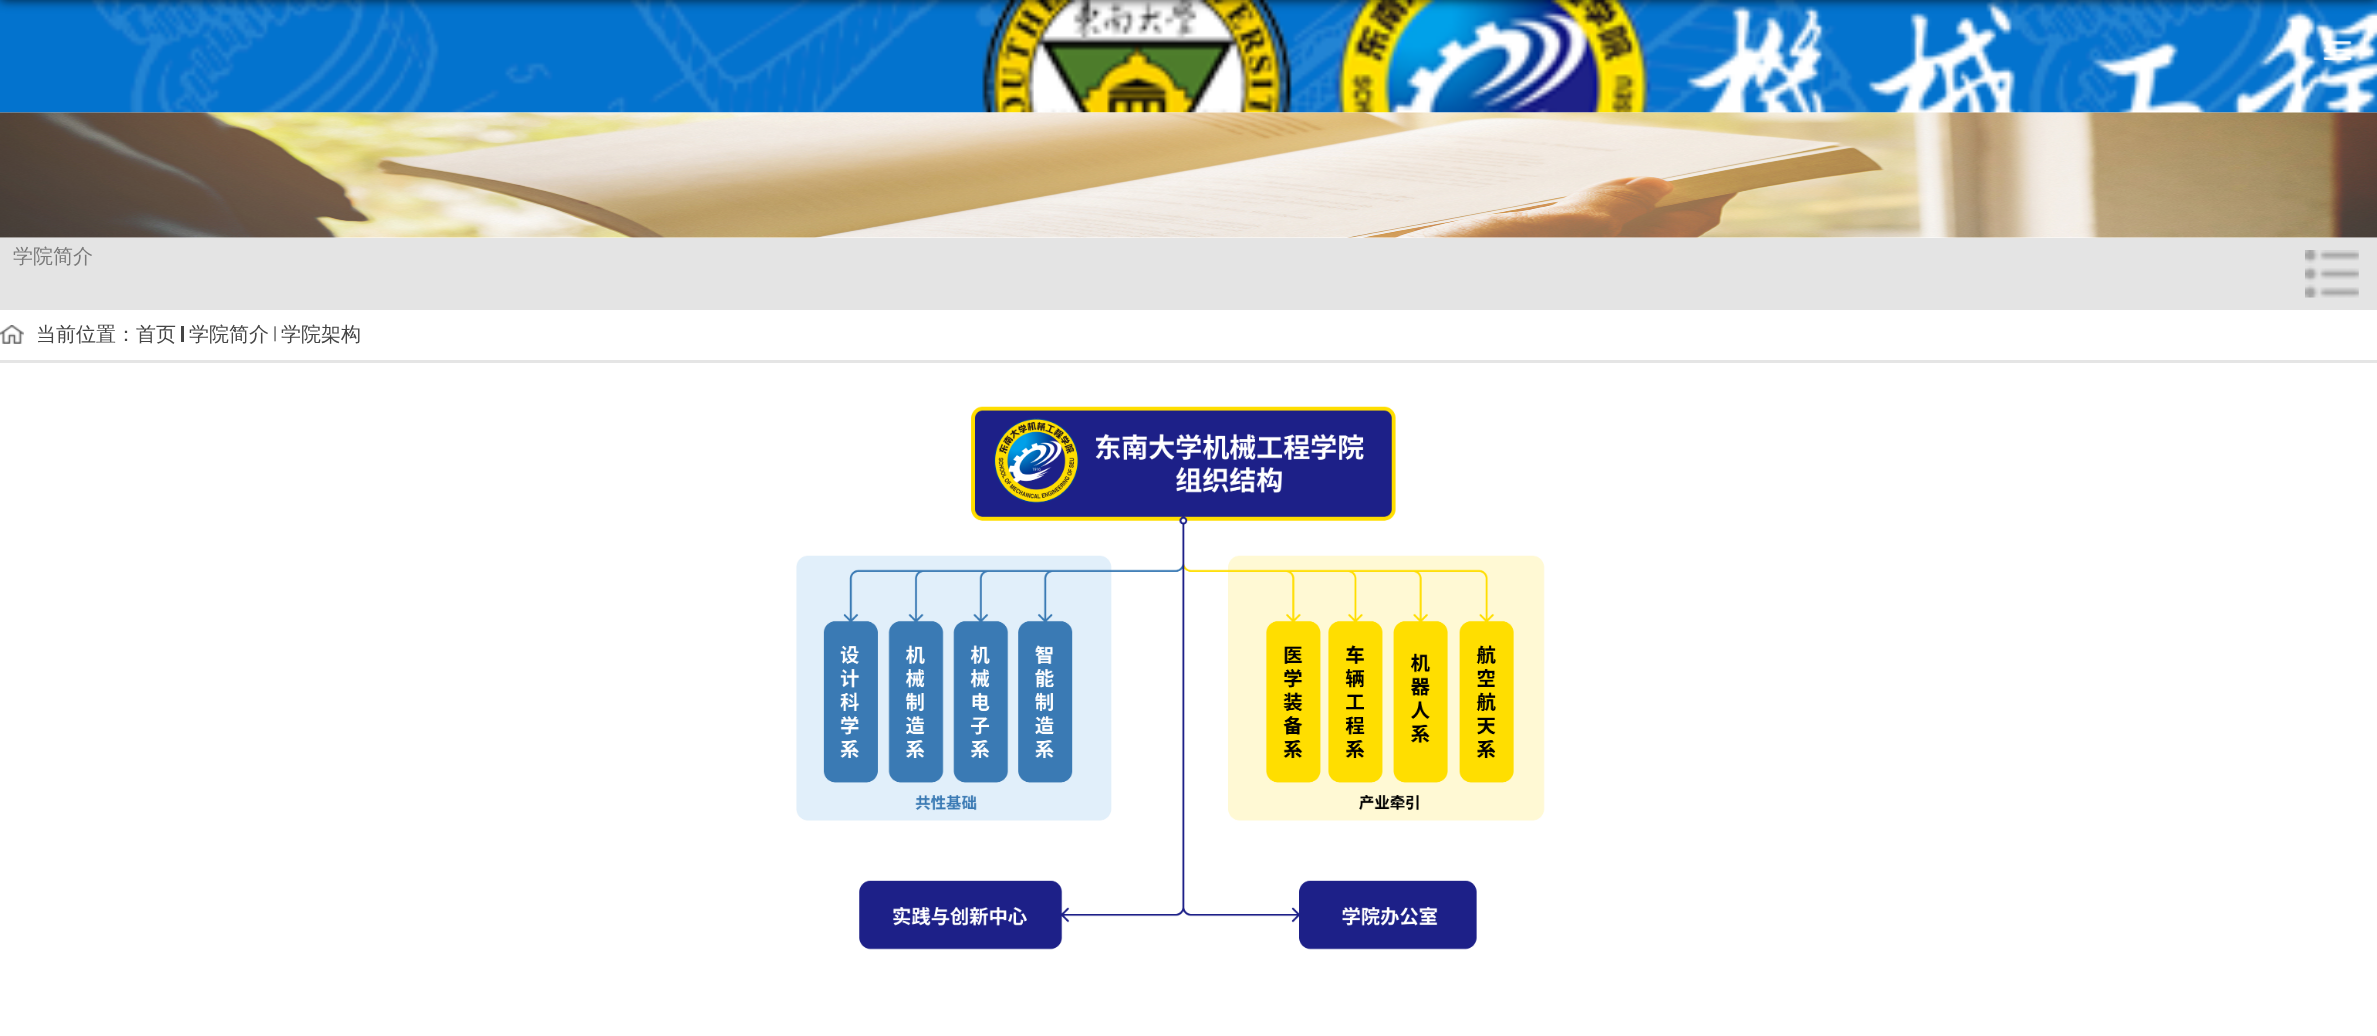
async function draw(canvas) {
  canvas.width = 2377
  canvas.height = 1036
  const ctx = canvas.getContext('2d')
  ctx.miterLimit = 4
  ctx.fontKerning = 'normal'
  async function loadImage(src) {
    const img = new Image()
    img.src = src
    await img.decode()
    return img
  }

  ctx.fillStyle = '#fff'
  ctx.fillRect(0, 0, 2377, 1036)
  ctx.drawImage(await loadImage('image0.png'), 0, 0, 2377, 113)
  ctx.drawImage(await loadImage('image1.png'), 2323, 41, 29, 19)
  ctx.fillStyle = '#000000cc'
  ctx.filter = 'blur(6px)'
  ctx.beginPath()
  ctx.rect(0, -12, 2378, 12)
  ctx.fill()
  ctx.filter = 'none'
  ctx.drawImage(await loadImage('image2.png'), 0, 112, 2377, 126)
  ctx.fillStyle = '#e4e4e4'
  ctx.fillRect(0, 238, 2377, 72)
  ctx.font = '500 20px WenQuanYi Zen Hei'
  ctx.fillStyle = '#7a7a7a'
  ctx.fillText('学院简介', 13, 263)
  ctx.drawImage(await loadImage('image3.png'), 2305, 250, 54, 48)
  ctx.fillStyle = '#e5e5e5'
  ctx.fillRect(0, 360, 2377, 3)
  ctx.drawImage(await loadImage('image4.png'), 0, 325, 24, 19)
  ctx.fillStyle = '#454545'
  ctx.fillText('当前位置：首页', 36, 341)
  ctx.fillStyle = '#444'
  ctx.fillRect(181, 326, 3, 16)
  ctx.fillStyle = '#454545'
  ctx.fillText('学院简介', 189, 341)
  ctx.drawImage(await loadImage('image5.png'), 274, 326, 2, 16)
  ctx.fillText('学院架构', 281, 341)
  ctx.drawImage(await loadImage('image6.png'), 796, 406, 749, 544)
}

draw(document.querySelector('canvas'))
